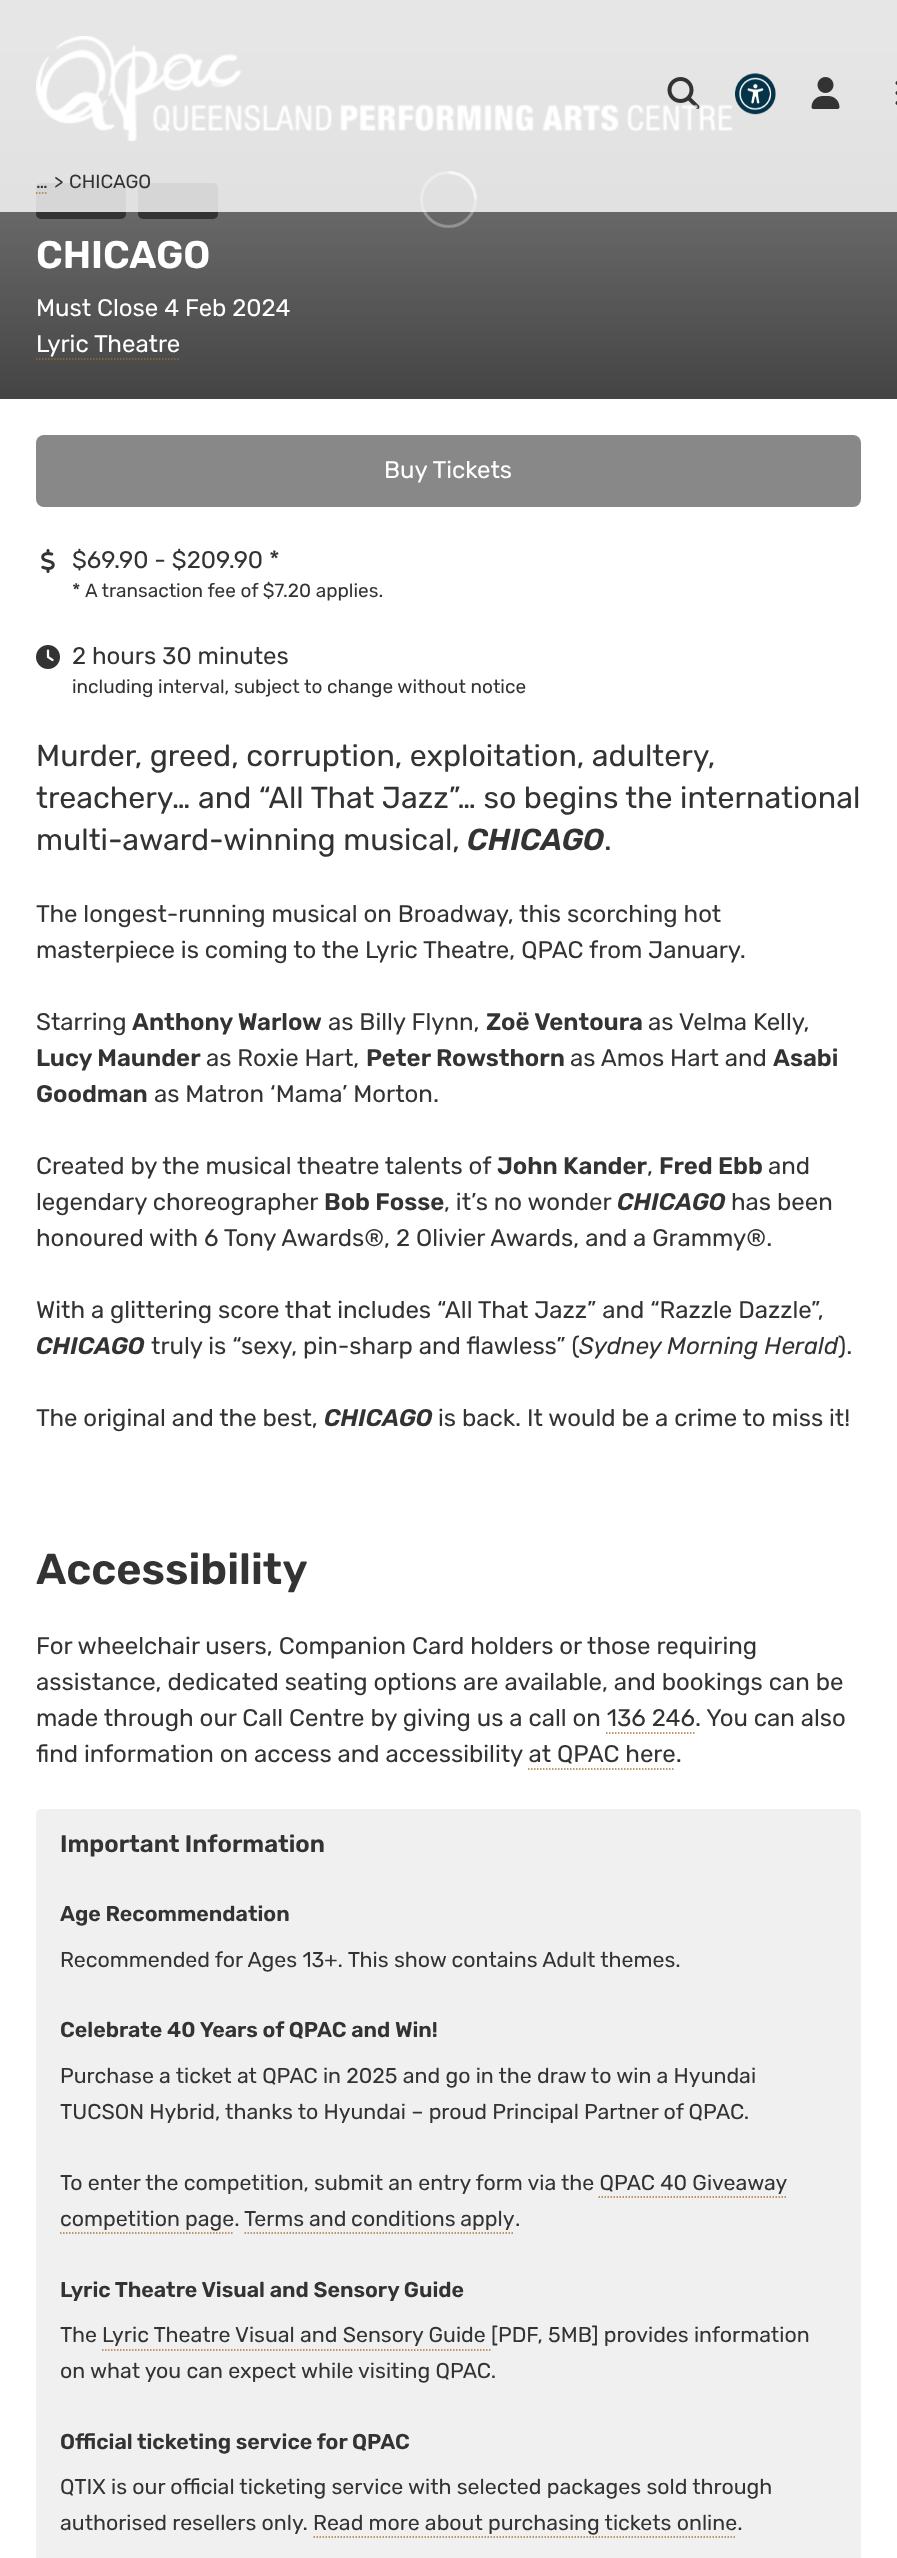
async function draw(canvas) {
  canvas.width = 897
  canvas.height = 2558
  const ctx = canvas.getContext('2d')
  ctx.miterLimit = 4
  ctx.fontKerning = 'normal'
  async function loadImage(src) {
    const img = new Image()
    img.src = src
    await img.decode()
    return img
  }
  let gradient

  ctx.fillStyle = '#fff'
  ctx.fillRect(0, 0, 897, 2558)
  ctx.fillStyle = '#888'
  ctx.fillRect(0, 0, 897, 399)
  ctx.beginPath()
  ctx.arc(448.5, 199.5, 27, 0, 2 * Math.PI)
  ctx.strokeStyle = '#c4c4c4'
  ctx.lineWidth = 3
  ctx.stroke()
  ctx.beginPath()
  ctx.moveTo(475.5, 199.5)
  ctx.bezierCurveTo(475.5, 184.5, 463.5, 172.5, 448.5, 172.5)
  ctx.strokeStyle = '#fff'
  ctx.stroke()
  gradient = ctx.createLinearGradient(449, 399, 449, -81)
  gradient.addColorStop(0, '#00000080')
  gradient.addColorStop(0.19, '#0000005e')
  gradient.addColorStop(0.34, '#00000045')
  gradient.addColorStop(0.47, '#00000030')
  gradient.addColorStop(0.56, '#00000024')
  gradient.addColorStop(0.65, '#0000001a')
  gradient.addColorStop(0.73, '#0000000f')
  gradient.addColorStop(0.8, '#0000000a')
  gradient.addColorStop(0.86, '#00000005')
  gradient.addColorStop(0.91, '#00000003')
  gradient.addColorStop(0.95, '#00000000')
  gradient.addColorStop(0.98, '#00000000')
  gradient.addColorStop(1, '#00000000')
  ctx.fillStyle = gradient
  ctx.fillRect(0, 0, 897, 399)
  ctx.fillStyle = '#333'
  ctx.beginPath()
  ctx.roundRect(36, 183, 90, 36, 5)
  ctx.fill()
  ctx.beginPath()
  ctx.roundRect(138, 183, 80, 36, 5)
  ctx.fill()
  ctx.fillStyle = '#ffffffcc'
  ctx.fillRect(0, 0, 897, 212)
  ctx.drawImage(await loadImage('image1.png'), 667, 77, 33, 32)
  ctx.drawImage(await loadImage('image0.png'), 36, 36, 696, 105)
  ctx.drawImage(await loadImage('image2.png'), 735, 73, 41, 42)
  ctx.drawImage(await loadImage('image3.png'), 811, 77, 29, 32)
  ctx.drawImage(await loadImage('image4.png'), 895, 81, 2, 24)
  ctx.font = '19px Rubik'
  ctx.fillStyle = '#333'
  ctx.fillText('…', 36, 188)
  ctx.beginPath()
  ctx.moveTo(36, 193)
  ctx.lineTo(48, 193)
  ctx.strokeStyle = '#ad773d'
  ctx.lineWidth = 1.5
  ctx.setLineDash([1.5, 1.5])
  ctx.stroke()
  ctx.fillText('>', 54, 188)
  ctx.fillText('CHICAGO', 69, 188)
  ctx.font = '600 38.5px Rubik'
  ctx.fillStyle = '#fff'
  ctx.fillText('CHICAGO', 36, 268)
  ctx.font = '24px Rubik'
  ctx.fillText('Must Close 4 Feb 2024', 36, 316)
  ctx.fillText('Lyric Theatre', 36, 352)
  ctx.beginPath()
  ctx.moveTo(36, 359)
  ctx.lineTo(180, 359)
  ctx.strokeStyle = '#996936'
  ctx.stroke()
  ctx.fillStyle = '#888'
  ctx.beginPath()
  ctx.roundRect(36, 435, 825, 72, 8)
  ctx.fill()
  ctx.fillStyle = '#fff'
  ctx.fillText('Buy Tickets', 384, 478)
  ctx.drawImage(await loadImage('image5.png'), 41, 549, 14, 24)
  ctx.fillStyle = '#333'
  ctx.fillText('$69.90 - $209.90 *', 72, 568)
  ctx.font = '19px Rubik'
  ctx.fillText('*', 72, 597)
  ctx.fillText('A transaction fee of $7.20 applies.', 85, 597)
  ctx.drawImage(await loadImage('image6.png'), 36, 645, 24, 24)
  ctx.font = '24px Rubik'
  ctx.fillText('2 hours 30 minutes', 72, 664)
  ctx.font = '19px Rubik'
  ctx.fillText('including interval, subject to change without notice', 72, 693)
  ctx.font = '30.4px Rubik'
  ctx.fillText('Murder, greed, corruption, exploitation, adultery,', 36, 766)
  ctx.fillText('treachery… and “All That Jazz”… so begins the international', 36, 808)
  ctx.fillText('multi-award-winning musical,', 36, 850)
  ctx.font = 'italic 600 30.4px Rubik'
  ctx.fillText('CHICAGO', 467, 850)
  ctx.font = '30.4px Rubik'
  ctx.fillText('.', 604, 850)
  ctx.font = '24px Rubik'
  ctx.fillText('The longest-running musical on Broadway, this scorching hot', 36, 922)
  ctx.fillText('masterpiece is coming to the Lyric Theatre, QPAC from January.', 36, 958)
  ctx.fillText('Starring', 36, 1030)
  ctx.font = '600 24px Rubik'
  ctx.fillText('Anthony Warlow', 132, 1030)
  ctx.font = '24px Rubik'
  ctx.fillText('as Billy Flynn,', 328, 1030)
  ctx.font = '600 24px Rubik'
  ctx.fillText('Zoë Ventoura', 486, 1030)
  ctx.font = '24px Rubik'
  ctx.fillText('as Velma Kelly,', 648, 1030)
  ctx.font = '600 24px Rubik'
  ctx.fillText('Lucy Maunder', 36, 1066)
  ctx.font = '24px Rubik'
  ctx.fillText('as Roxie Hart,', 206, 1066)
  ctx.font = '600 24px Rubik'
  ctx.fillText('Peter Rowsthorn', 366, 1066)
  ctx.font = '24px Rubik'
  ctx.fillText('as Amos Hart and', 570, 1066)
  ctx.font = '600 24px Rubik'
  ctx.fillText('Asabi', 773, 1066)
  ctx.fillText('Goodman', 36, 1102)
  ctx.font = '24px Rubik'
  ctx.fillText('as Matron ‘Mama’ Morton.', 154, 1102)
  ctx.fillText('Created by the musical theatre talents of', 36, 1174)
  ctx.font = '600 24px Rubik'
  ctx.fillText('John Kander', 497, 1174)
  ctx.font = '24px Rubik'
  ctx.fillText(',', 647, 1174)
  ctx.font = '600 24px Rubik'
  ctx.fillText('Fred Ebb', 659, 1174)
  ctx.font = '24px Rubik'
  ctx.fillText('and', 768, 1174)
  ctx.fillText('legendary choreographer', 36, 1210)
  ctx.font = '600 24px Rubik'
  ctx.fillText('Bob Fosse', 324, 1210)
  ctx.font = '24px Rubik'
  ctx.fillText(', it’s no wonder', 444, 1210)
  ctx.font = 'italic 600 24px Rubik'
  ctx.fillText('CHICAGO', 617, 1210)
  ctx.font = '24px Rubik'
  ctx.fillText('has been', 731, 1210)
  ctx.fillText('honoured with 6 Tony Awards®, 2 Olivier Awards, and a Grammy®.', 36, 1246)
  ctx.fillText('With a glittering score that includes “All That Jazz” and “Razzle Dazzle”,', 36, 1318)
  ctx.font = 'italic 600 24px Rubik'
  ctx.fillText('CHICAGO', 36, 1354)
  ctx.font = '24px Rubik'
  ctx.fillText('truly is “sexy, pin-sharp and flawless” (', 151, 1354)
  ctx.font = 'italic 24px Rubik'
  ctx.fillText('Sydney Morning Herald', 579, 1354)
  ctx.font = '24px Rubik'
  ctx.fillText(').', 838, 1354)
  ctx.fillText('The original and the best,', 36, 1426)
  ctx.font = 'italic 600 24px Rubik'
  ctx.fillText('CHICAGO', 324, 1426)
  ctx.font = '24px Rubik'
  ctx.fillText('is back. It would be a crime to miss it!', 438, 1426)
  ctx.font = '600 43.25px Rubik'
  ctx.fillText('Accessibility', 36, 1584)
  ctx.font = '24px Rubik'
  ctx.fillText('For wheelchair users, Companion Card holders or those requiring', 36, 1654)
  ctx.fillText('assistance, dedicated seating options are available, and bookings can be', 36, 1690)
  ctx.fillText('made through our Call Centre by giving us a call on 136 246. You can also', 36, 1726)
  ctx.beginPath()
  ctx.moveTo(606, 1733)
  ctx.lineTo(694.5, 1733)
  ctx.strokeStyle = '#ad773d'
  ctx.stroke()
  ctx.fillText('find information on access and accessibility at QPAC here.', 36, 1762)
  ctx.beginPath()
  ctx.moveTo(528, 1769)
  ctx.lineTo(675, 1769)
  ctx.stroke()
  ctx.fillStyle = '#f0f0f0'
  ctx.beginPath()
  ctx.roundRect(36, 1809, 825, 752, 5)
  ctx.fill()
  ctx.font = '600 24px Rubik'
  ctx.fillStyle = '#333'
  ctx.fillText('Important Information', 60, 1852)
  ctx.font = '600 21.35px Rubik'
  ctx.fillText('Age Recommendation', 60, 1921)
  ctx.font = '21.35px Rubik'
  ctx.fillText('Recommended for Ages 13+. This show contains Adult themes.', 60, 1967)
  ctx.font = '600 21.35px Rubik'
  ctx.fillText('Celebrate 40 Years of QPAC and Win!', 60, 2037)
  ctx.font = '21.35px Rubik'
  ctx.fillText('Purchase a ticket at QPAC in 2025 and go in the draw to win a Hyundai', 60, 2083)
  ctx.fillText('TUCSON Hybrid, thanks to Hyundai – proud Principal Partner of QPAC.', 60, 2119)
  ctx.fillText('To enter the competition, submit an entry form via the QPAC 40 Giveaway', 60, 2190)
  ctx.fillText('competition page.', 60, 2226)
  ctx.beginPath()
  ctx.moveTo(598.5, 2197)
  ctx.lineTo(787.5, 2197)
  ctx.stroke()
  ctx.beginPath()
  ctx.moveTo(60, 2233)
  ctx.lineTo(234, 2233)
  ctx.stroke()
  ctx.wordSpacing = '-0.5px'
  ctx.fillText('Terms and conditions apply', 244, 2226)
  ctx.beginPath()
  ctx.moveTo(244.5, 2233)
  ctx.lineTo(514.5, 2233)
  ctx.stroke()
  ctx.wordSpacing = '0px'
  ctx.fillText('.', 515, 2226)
  ctx.font = '600 21.35px Rubik'
  ctx.fillText('Lyric Theatre Visual and Sensory Guide', 60, 2297)
  ctx.font = '21.35px Rubik'
  ctx.fillText('The Lyric Theatre Visual and Sensory Guide [PDF, 5MB] provides information', 60, 2342)
  ctx.beginPath()
  ctx.moveTo(102, 2350)
  ctx.lineTo(490.5, 2350)
  ctx.stroke()
  ctx.fillText('on what you can expect while visiting QPAC.', 60, 2378)
  ctx.font = '600 21.35px Rubik'
  ctx.fillText('Official ticketing service for QPAC', 60, 2449)
  ctx.font = '21.35px Rubik'
  ctx.fillText('QTIX is our official ticketing service with selected packages sold through', 60, 2494)
  ctx.fillText('authorised resellers only. Read more about purchasing tickets online.', 60, 2530)
  ctx.beginPath()
  ctx.moveTo(313.5, 2537)
  ctx.lineTo(736.5, 2537)
  ctx.stroke()
}

draw(document.querySelector('canvas'))
